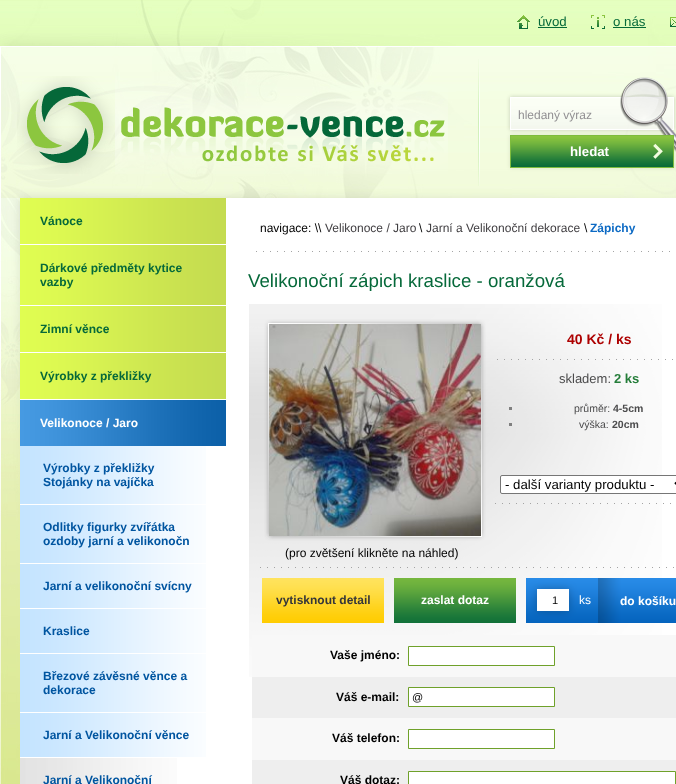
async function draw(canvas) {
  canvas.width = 676
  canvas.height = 784
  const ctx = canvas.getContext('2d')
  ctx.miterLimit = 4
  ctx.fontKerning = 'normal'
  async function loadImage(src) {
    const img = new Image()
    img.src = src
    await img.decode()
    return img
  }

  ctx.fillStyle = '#fff'
  ctx.fillRect(0, 0, 676, 784)
  ctx.drawImage(await loadImage('image0.png'), 0, 0, 676, 198)
  ctx.drawImage(await loadImage('image1.png'), 517, 15, 13, 14)
  ctx.font = '13.25px Liberation Sans'
  ctx.fillStyle = '#06693a'
  ctx.fillText('úvod', 538, 26)
  ctx.fillStyle = '#066a38'
  ctx.fillRect(538, 27, 29, 1)
  ctx.drawImage(await loadImage('image2.png'), 591, 15, 14, 14)
  ctx.fillStyle = '#06693a'
  ctx.fillText('o nás', 613, 26)
  ctx.fillStyle = '#066a38'
  ctx.fillRect(613, 27, 33, 1)
  ctx.drawImage(await loadImage('image3.png'), 670, 17, 6, 10)
  ctx.drawImage(await loadImage('image4.png'), 17, 76, 431, 98)
  ctx.drawImage(await loadImage('image5.png'), 478, 59, 198, 127)
  ctx.font = '12px Liberation Sans'
  ctx.fillStyle = '#929093'
  ctx.fillText('hledaný výraz', 518, 119)
  ctx.font = 'bold 13.25px Liberation Sans'
  ctx.fillStyle = '#fff'
  ctx.fillText('hledat', 570, 156)
  ctx.drawImage(await loadImage('image6.png'), 0, 198, 20, 586)
  ctx.drawImage(await loadImage('image7.png'), 20, 198, 206, 46)
  ctx.font = 'bold 12px Liberation Sans'
  ctx.fillStyle = '#06693a'
  ctx.fillText('Vánoce', 40, 225)
  ctx.drawImage(await loadImage('image8.png'), 20, 245, 206, 60)
  ctx.fillText('Dárkové předměty kytice', 40, 272)
  ctx.fillText('vazby', 40, 286)
  ctx.drawImage(await loadImage('image7.png'), 20, 306, 206, 46)
  ctx.fillText('Zimní věnce', 40, 333)
  ctx.drawImage(await loadImage('image7.png'), 20, 353, 206, 46)
  ctx.fillText('Výrobky z překližky', 40, 380)
  ctx.drawImage(await loadImage('image9.png'), 20, 400, 206, 46)
  ctx.fillStyle = '#fff'
  ctx.fillText('Velikonoce / Jaro', 40, 427)
  ctx.drawImage(await loadImage('image10.png'), 20, 446, 186, 58)
  ctx.fillStyle = '#0055a0'
  ctx.fillText('Výrobky z překližky', 43, 472)
  ctx.fillText('Stojánky na vajíčka', 43, 486)
  ctx.drawImage(await loadImage('image10.png'), 20, 505, 186, 58)
  ctx.fillText('Odlitky figurky zvířátka', 43, 531)
  ctx.fillText('ozdoby jarní a velikonočn', 43, 545)
  ctx.drawImage(await loadImage('image11.png'), 20, 564, 186, 44)
  ctx.fillText('Jarní a velikonoční svícny', 43, 590)
  ctx.drawImage(await loadImage('image11.png'), 20, 609, 186, 44)
  ctx.fillText('Kraslice', 43, 635)
  ctx.drawImage(await loadImage('image10.png'), 20, 654, 186, 58)
  ctx.fillText('Březové závěsné věnce a', 43, 680)
  ctx.fillText('dekorace', 43, 694)
  ctx.drawImage(await loadImage('image11.png'), 20, 713, 186, 44)
  ctx.fillText('Jarní a Velikonoční věnce', 43, 739)
  ctx.drawImage(await loadImage('image12.png'), 20, 758, 157, 26)
  ctx.fillText('Jarní a Velikonoční', 43, 784)
  ctx.font = '12px Liberation Sans'
  ctx.fillStyle = '#000'
  ctx.fillText('navigace: \\\\', 260, 232)
  ctx.fillStyle = '#403e41'
  ctx.fillText('Velikonoce / Jaro', 325, 232)
  ctx.fillStyle = '#000'
  ctx.fillText('\\', 419, 232)
  ctx.fillStyle = '#403e41'
  ctx.fillText('Jarní a Velikonoční dekorace', 426, 232)
  ctx.fillStyle = '#000'
  ctx.fillText('\\', 584, 232)
  ctx.font = 'bold 12px Liberation Sans'
  ctx.fillStyle = '#0c6ac4'
  ctx.fillText('Zápichy', 590, 232)
  ctx.drawImage(await loadImage('image13.png'), 256, 251, 414, 1)
  ctx.font = '18.7px Liberation Sans'
  ctx.fillStyle = '#06693a'
  ctx.fillText('Velikonoční zápich kraslice - oranžová', 248, 287)
  ctx.drawImage(await loadImage('image14.png'), 249, 304, 413, 373)
  ctx.font = 'bold 14px Liberation Sans'
  ctx.fillStyle = '#ad0000'
  ctx.fillText('40 Kč / ks', 567, 344)
  ctx.drawImage(await loadImage('image15.png'), 497, 359, 176, 1)
  ctx.font = '13px Liberation Sans'
  ctx.fillStyle = '#4b4b4c'
  ctx.fillText('skladem:', 559, 383)
  ctx.font = 'bold 13px Liberation Sans'
  ctx.fillStyle = '#247d39'
  ctx.fillText('2 ks', 614, 383)
  ctx.fillStyle = '#7f7f7f'
  ctx.fillRect(509, 407, 3, 3)
  ctx.font = '10.5px Liberation Sans'
  ctx.fillStyle = '#4b4b4c'
  ctx.fillText('průměr:', 574, 412)
  ctx.font = 'bold 10.5px Liberation Sans'
  ctx.fillText('4-5cm', 613, 412)
  ctx.fillStyle = '#7f7f7f'
  ctx.fillRect(509, 423, 3, 3)
  ctx.font = '10.5px Liberation Sans'
  ctx.fillStyle = '#4b4b4c'
  ctx.fillText('výška:', 579, 428)
  ctx.font = 'bold 10.5px Liberation Sans'
  ctx.fillText('20cm', 612, 428)
  ctx.fillStyle = '#fff'
  ctx.beginPath()
  ctx.roundRect(500.5, 475.5, 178, 18, 1.5)
  ctx.fill()
  ctx.strokeStyle = '#767676'
  ctx.stroke()
  ctx.beginPath()
  ctx.moveTo(675, 482.5)
  ctx.lineTo(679, 486.5)
  ctx.lineTo(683, 482.5)
  ctx.strokeStyle = '#000'
  ctx.lineWidth = 2
  ctx.stroke()
  ctx.font = '13.25px Liberation Sans'
  ctx.fillStyle = '#000'
  ctx.fillText('- další varianty produktu -', 505, 489)
  ctx.drawImage(await loadImage('image16.png'), 495, 503, 176, 1)
  ctx.drawImage(await loadImage('image17.png'), 269, 324, 212, 212)
  ctx.font = '12px Liberation Sans'
  ctx.fillText('(pro zvětšení klikněte na náhled)', 285, 557)
  ctx.drawImage(await loadImage('image18.png'), 260, 567, 414, 1)
  ctx.drawImage(await loadImage('image19.png'), 262, 578, 122, 45)
  ctx.font = 'bold 12px Liberation Sans'
  ctx.fillStyle = '#35363a'
  ctx.fillText('vytisknout detail', 276, 604)
  ctx.drawImage(await loadImage('image20.png'), 394, 578, 122, 45)
  ctx.fillStyle = '#fff'
  ctx.fillText('zaslat dotaz', 421, 604)
  ctx.drawImage(await loadImage('image21.png'), 526, 578, 150, 45)
  ctx.font = '11px Liberation Sans'
  ctx.fillStyle = '#000'
  ctx.fillText('1', 552, 604)
  ctx.font = '12px Liberation Sans'
  ctx.fillStyle = '#fff'
  ctx.fillText('ks', 579, 604)
  ctx.font = 'bold 12px Liberation Sans'
  ctx.fillText('do košíku', 620, 605)
  ctx.fillStyle = '#f8f8f8'
  ctx.fillRect(252, 635, 424, 125)
  ctx.fillStyle = '#000'
  ctx.fillText('Vaše jméno:', 330, 659)
  ctx.fillStyle = '#fff'
  ctx.beginPath()
  ctx.rect(408.5, 646.5, 146, 19)
  ctx.fill()
  ctx.strokeStyle = '#6fa12a'
  ctx.lineWidth = 1
  ctx.stroke()
  ctx.fillStyle = '#eee'
  ctx.fillRect(252, 677, 424, 41)
  ctx.fillStyle = '#000'
  ctx.fillText('Váš e-mail:', 336, 701)
  ctx.fillStyle = '#fff'
  ctx.beginPath()
  ctx.rect(408.5, 687.5, 146, 19)
  ctx.fill()
  ctx.stroke()
  ctx.font = '11px Liberation Sans'
  ctx.fillStyle = '#000'
  ctx.fillText('@', 412, 701)
  ctx.font = 'bold 12px Liberation Sans'
  ctx.fillText('Váš telefon:', 332, 742)
  ctx.fillStyle = '#fff'
  ctx.beginPath()
  ctx.rect(408.5, 729.5, 146, 19)
  ctx.fill()
  ctx.stroke()
  ctx.fillStyle = '#eee'
  ctx.fillRect(252, 760, 424, 24)
  ctx.fillStyle = '#fff'
  ctx.beginPath()
  ctx.rect(408.5, 771.5, 267, 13)
  ctx.fill()
  ctx.stroke()
  ctx.fillStyle = '#000'
  ctx.fillText('Váš dotaz:', 340, 784)
}

draw(document.querySelector('canvas'))
